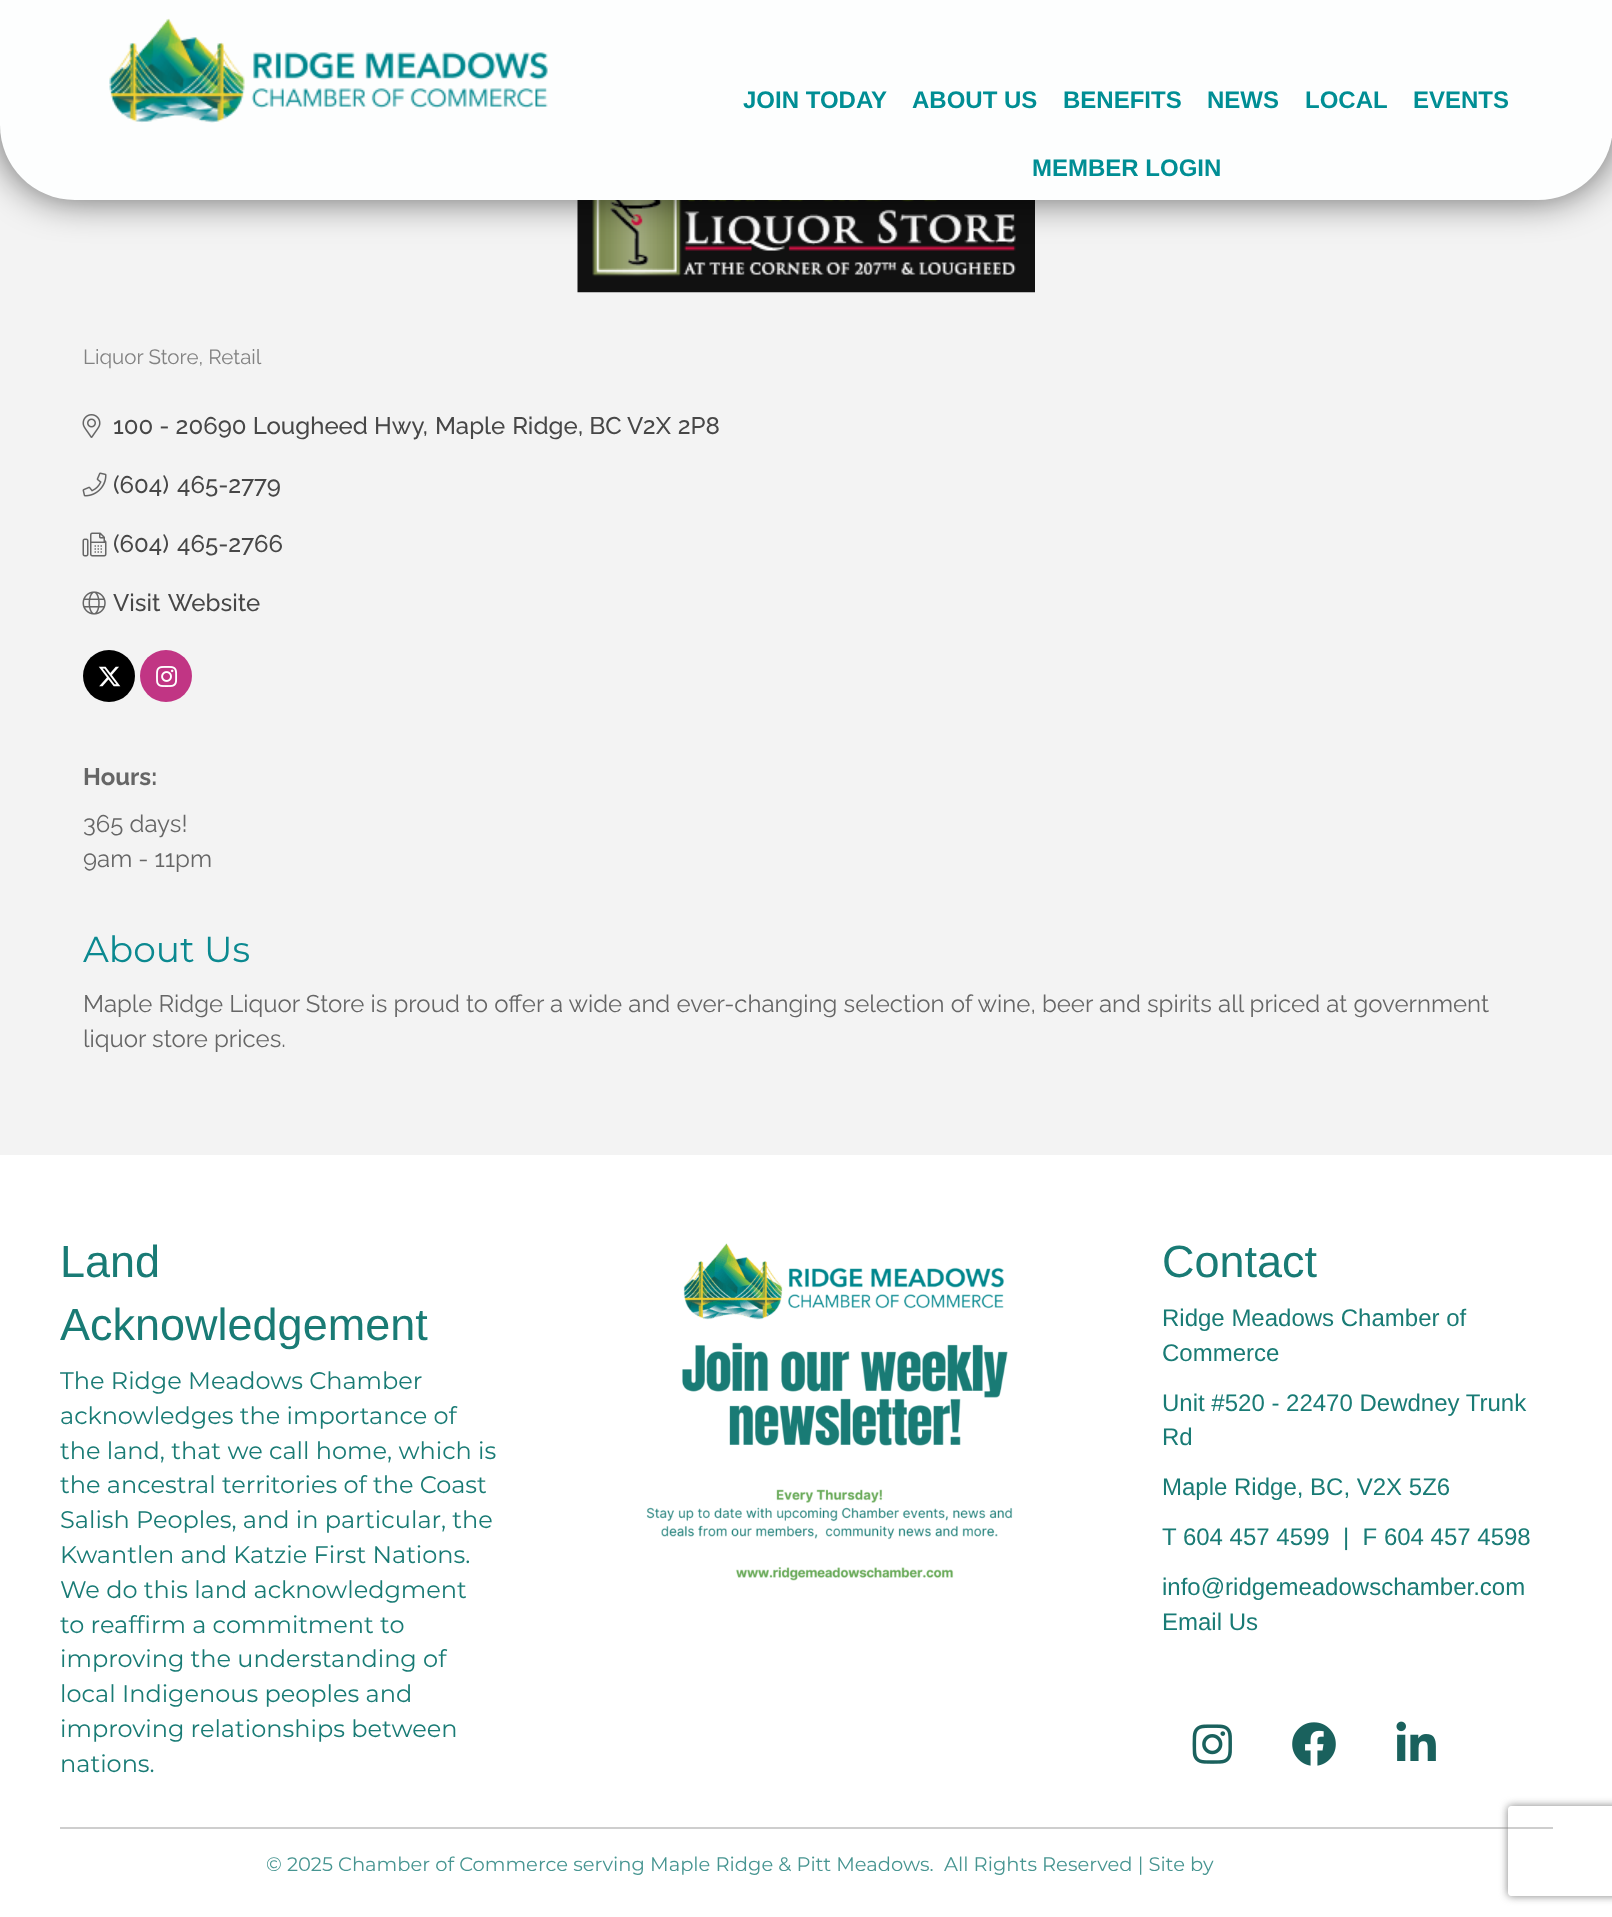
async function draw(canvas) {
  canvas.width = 1612
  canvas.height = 1917
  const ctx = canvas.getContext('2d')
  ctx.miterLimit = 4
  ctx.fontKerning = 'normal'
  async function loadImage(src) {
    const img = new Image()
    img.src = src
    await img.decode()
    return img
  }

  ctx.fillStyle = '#f3f3f3'
  ctx.fillRect(0, 0, 1612, 1917)
  ctx.drawImage(await loadImage('image1.png'), 577, 200, 458, 93)
  ctx.fillStyle = '#000000a3'
  ctx.filter = 'blur(19.5px)'
  ctx.beginPath()
  ctx.roundRect(0, -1, 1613, 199, 75)
  ctx.fill()
  ctx.filter = 'none'
  ctx.fillStyle = '#fdfefe'
  ctx.beginPath()
  ctx.moveTo(0, 0)
  ctx.lineTo(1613, 0)
  ctx.lineTo(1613, 125)
  ctx.bezierCurveTo(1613, 166.5, 1579.5, 200, 1538, 200)
  ctx.lineTo(75, 200)
  ctx.bezierCurveTo(33.5, 200, 0, 166.5, 0, 125)
  ctx.closePath()
  ctx.fill()
  ctx.drawImage(await loadImage('image0.png'), 109, 18, 439, 105)
  ctx.font = 'bold 24px Liberation Sans'
  ctx.fillStyle = '#008e94'
  ctx.fillText('JOIN TODAY', 743, 108)
  ctx.fillText('ABOUT US', 912, 108)
  ctx.fillText('BENEFITS', 1063, 108)
  ctx.fillText('NEWS', 1207, 108)
  ctx.fillText('LOCAL', 1305, 108)
  ctx.fillText('EVENTS', 1413, 108)
  ctx.fillText('MEMBER LOGIN', 1032, 176)
  ctx.font = '20.5px Raleway'
  ctx.fillStyle = '#828282'
  ctx.fillText('Liquor Store, Retail', 83, 364)
  ctx.drawImage(await loadImage('image2.png'), 82, 414, 19, 24)
  ctx.font = '500 24px Raleway'
  ctx.fillStyle = '#474747'
  ctx.fillText('100 - 20690 Lougheed Hwy,', 113, 434)
  ctx.wordSpacing = '1px'
  ctx.fillText('Maple Ridge', 435, 434)
  ctx.wordSpacing = '0px'
  ctx.fillText(', BC', 578, 434)
  ctx.wordSpacing = '1px'
  ctx.fillText('V2X 2P8', 627, 434)
  ctx.drawImage(await loadImage('image3.png'), 82, 472, 25, 25)
  ctx.wordSpacing = '2px'
  ctx.fillText('(604) 465-2779', 113, 493)
  ctx.drawImage(await loadImage('image4.png'), 82, 532, 25, 25)
  ctx.fillText('(604) 465-2766', 113, 552)
  ctx.drawImage(await loadImage('image5.png'), 82, 591, 24, 24)
  ctx.fillText('Visit Website', 113, 611)
  ctx.fillStyle = '#000'
  ctx.beginPath()
  ctx.arc(109, 676, 26, 0, 2 * Math.PI)
  ctx.fill()
  ctx.drawImage(await loadImage('image6.png'), 98, 666, 23, 21)
  ctx.fillStyle = '#c13584'
  ctx.beginPath()
  ctx.arc(166, 676, 26, 0, 2 * Math.PI)
  ctx.fill()
  ctx.drawImage(await loadImage('image7.png'), 156, 666, 22, 21)
  ctx.wordSpacing = '0px'
  ctx.font = 'bold 24px Raleway'
  ctx.fillStyle = '#666'
  ctx.fillText('Hours:', 83, 785)
  ctx.font = '24px Raleway'
  ctx.fillText('365 days!', 83, 832)
  ctx.fillText('9am - 11pm', 83, 867)
  ctx.font = '36px Montserrat'
  ctx.fillStyle = '#0b8990'
  ctx.fillText('About Us', 83, 962)
  ctx.font = '24px Raleway'
  ctx.fillStyle = '#666'
  ctx.fillText('Maple Ridge Liquor Store is proud to offer a wide and ever-changing selection of wine, beer and spirits all priced at government', 83, 1012)
  ctx.fillText('liquor store prices.', 83, 1047)
  ctx.fillStyle = '#fff'
  ctx.fillRect(0, 1155, 1612, 762)
  ctx.font = '45px Liberation Sans'
  ctx.fillStyle = '#197b75'
  ctx.fillText('Land', 60, 1277)
  ctx.fillText('Acknowledgement', 60, 1340)
  ctx.font = '24px Montserrat'
  ctx.fillText('The Ridge Meadows Chamber', 60, 1389)
  ctx.fillText('acknowledges the importance of', 60, 1424)
  ctx.fillText('the land, that we call home, which is', 60, 1459)
  ctx.fillText('the ancestral territories of the Coast', 60, 1493)
  ctx.fillText('Salish Peoples, and in particular, the', 60, 1528)
  ctx.fillText('Kwantlen and Katzie First Nations.', 60, 1563)
  ctx.fillText('We do this land acknowledgment', 60, 1598)
  ctx.fillText('to reaffirm a commitment to', 60, 1633)
  ctx.fillText('improving the understanding of', 60, 1667)
  ctx.fillText('local Indigenous peoples and', 60, 1702)
  ctx.fillText('improving relationships between', 60, 1737)
  ctx.fillText('nations.', 60, 1772)
  ctx.drawImage(await loadImage('image8.png'), 646, 1243, 367, 338)
  ctx.font = '45px Liberation Sans'
  ctx.fillText('Contact', 1162, 1277)
  ctx.font = '24px Liberation Sans'
  ctx.fillText('Ridge Meadows Chamber of', 1162, 1326)
  ctx.fillText('Commerce', 1162, 1361)
  ctx.fillText('Unit #520 - 22470 Dewdney Trunk', 1162, 1411)
  ctx.fillText('Rd', 1162, 1445)
  ctx.fillText('Maple Ridge, BC, V2X 5Z6', 1162, 1495)
  ctx.fillText('T 604 457 4599', 1162, 1545)
  ctx.fillText('|  F 604 457 4598', 1343, 1545)
  ctx.fillText('info@ridgemeadowschamber.com', 1162, 1595)
  ctx.fillText('Email Us', 1162, 1630)
  ctx.drawImage(await loadImage('image9.png'), 1192, 1724, 40, 40)
  ctx.drawImage(await loadImage('image10.png'), 1292, 1722, 44, 44)
  ctx.drawImage(await loadImage('image11.png'), 1396, 1721, 40, 40)
  ctx.fillStyle = '#cecece'
  ctx.fillRect(60, 1827, 1493, 2)
  ctx.font = '19.5px Montserrat'
  ctx.fillStyle = '#479591'
  ctx.fillText('© 2025 Chamber of Commerce serving Maple Ridge & Pitt Meadows.', 266, 1871)
  ctx.fillText('All Rights Reserved | Site by', 944, 1871)
  ctx.save()
  ctx.beginPath()
  ctx.moveTo(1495, 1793)
  ctx.lineTo(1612, 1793)
  ctx.lineTo(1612, 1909)
  ctx.lineTo(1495, 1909)
  ctx.closePath()
  ctx.moveTo(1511, 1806)
  ctx.lineTo(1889, 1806)
  ctx.bezierCurveTo(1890.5, 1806, 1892, 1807.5, 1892, 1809)
  ctx.lineTo(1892, 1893)
  ctx.bezierCurveTo(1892, 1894.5, 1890.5, 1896, 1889, 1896)
  ctx.lineTo(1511, 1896)
  ctx.bezierCurveTo(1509.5, 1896, 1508, 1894.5, 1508, 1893)
  ctx.lineTo(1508, 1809)
  ctx.bezierCurveTo(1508, 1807.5, 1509.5, 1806, 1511, 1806)
  ctx.closePath()
  ctx.clip('evenodd')
  ctx.fillStyle = '#808080'
  ctx.filter = 'blur(4px)'
  ctx.beginPath()
  ctx.roundRect(1508, 1806, 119, 90, 3)
  ctx.fill()
  ctx.filter = 'none'
  ctx.restore()
}

draw(document.querySelector('canvas'))
